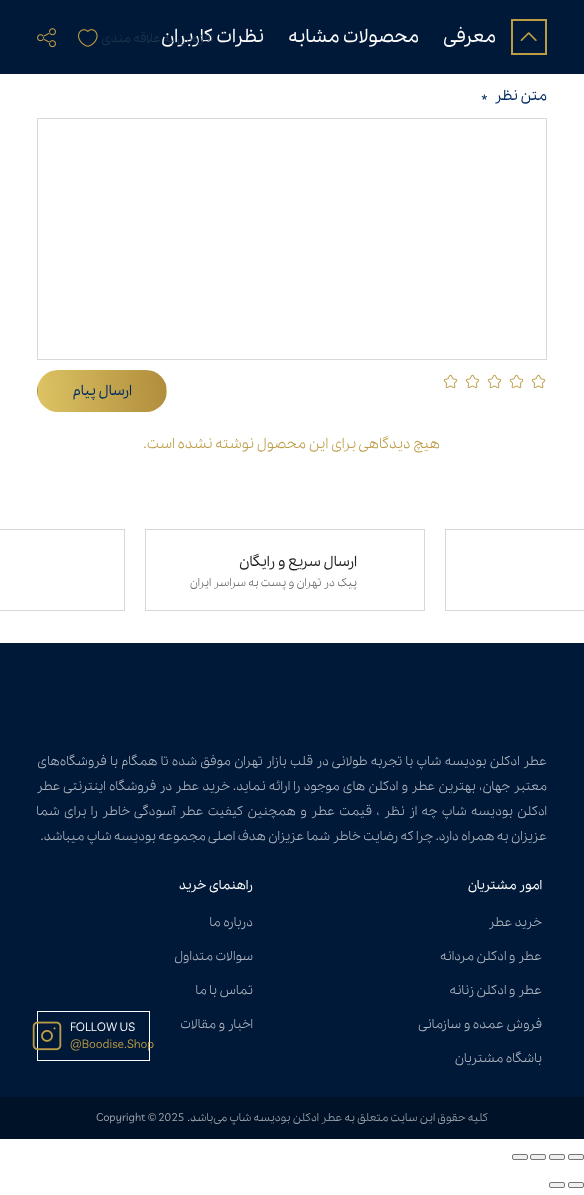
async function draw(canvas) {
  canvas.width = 584
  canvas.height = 1195
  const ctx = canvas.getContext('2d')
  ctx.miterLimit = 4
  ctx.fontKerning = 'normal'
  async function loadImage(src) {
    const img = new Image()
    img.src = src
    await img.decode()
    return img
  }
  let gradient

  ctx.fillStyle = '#fff'
  ctx.fillRect(0, 0, 584, 1195)
  ctx.fillStyle = '#001938'
  ctx.fillRect(0, 0, 584, 74)
  ctx.strokeStyle = '#bc9c45'
  ctx.lineWidth = 2
  ctx.strokeRect(512, 20, 34, 34)
  ctx.drawImage(await loadImage('image0.png'), 520, 32, 17, 10)
  ctx.direction = 'rtl'
  ctx.font = '500 18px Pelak'
  ctx.fillStyle = '#fff'
  ctx.fillText('معرفی', 496, 42)
  ctx.fillText('محصولات مشابه', 419, 42)
  ctx.fillText('نظرات کاربران', 264, 42)
  ctx.font = '12px Pelak'
  ctx.fillStyle = '#223852'
  ctx.fillText('افزودن به علاقه مندی', 213, 42)
  ctx.drawImage(await loadImage('image1.png'), 78, 29, 20, 18)
  ctx.drawImage(await loadImage('image2.png'), 37, 28, 19, 20)
  ctx.font = '500 14px Pelak'
  ctx.fillStyle = '#002c62'
  ctx.fillText('متن نظر', 547, 100)
  ctx.direction = 'ltr'
  ctx.fillText('*', 481, 100)
  ctx.strokeStyle = '#d7d7d7'
  ctx.lineWidth = 1
  ctx.strokeRect(37.5, 118.5, 509, 241)
  ctx.drawImage(await loadImage('image3.png'), 531, 374, 15, 15)
  ctx.drawImage(await loadImage('image3.png'), 509, 374, 15, 15)
  ctx.drawImage(await loadImage('image3.png'), 487, 374, 15, 15)
  ctx.drawImage(await loadImage('image3.png'), 465, 374, 15, 15)
  ctx.drawImage(await loadImage('image3.png'), 443, 374, 15, 15)
  ctx.save()
  ctx.beginPath()
  ctx.roundRect(37, 370, 130, 42, 21)
  ctx.clip()
  gradient = ctx.createLinearGradient(167, 346, 37, 356)
  gradient.addColorStop(0, '#b08d3c')
  gradient.addColorStop(1, '#ddc364')
  ctx.fillStyle = gradient
  ctx.fillRect(51, 370, 102, 1)
  gradient = ctx.createLinearGradient(39, 386, -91, 396)
  gradient.addColorStop(0, '#b08d3c')
  gradient.addColorStop(1, '#ddc364')
  ctx.fillStyle = gradient
  ctx.fillRect(37, 384, 1, 14)
  gradient = ctx.createLinearGradient(167, 386, 37, 396)
  gradient.addColorStop(0, '#b08d3c')
  gradient.addColorStop(1, '#ddc364')
  ctx.fillStyle = gradient
  ctx.fillRect(38, 371, 128, 40)
  gradient = ctx.createLinearGradient(295, 386, 165, 396)
  gradient.addColorStop(0, '#b08d3c')
  gradient.addColorStop(1, '#ddc364')
  ctx.fillStyle = gradient
  ctx.fillRect(166, 384, 1, 14)
  gradient = ctx.createLinearGradient(167, 426, 37, 436)
  gradient.addColorStop(0, '#b08d3c')
  gradient.addColorStop(1, '#ddc364')
  ctx.fillStyle = gradient
  ctx.fillRect(51, 411, 102, 1)
  ctx.restore()
  ctx.direction = 'rtl'
  ctx.fillText('ارسال پیام', 132, 395)
  ctx.font = '14px Pelak'
  ctx.fillStyle = '#bc9c45'
  ctx.fillText('هیچ دیدگاهی برای این محصول نوشته نشده است.', 440, 448)
  ctx.strokeRect(445.5, 529.5, 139, 81)
  ctx.strokeRect(145.5, 529.5, 279, 81)
  ctx.font = '500 14px Pelak'
  ctx.fillStyle = '#222'
  ctx.fillText('ارسال سریع و رایگان', 357, 566)
  ctx.font = '11px Pelak'
  ctx.fillStyle = '#636363'
  ctx.fillText('پیک در تهران و پست به سراسر ایران', 357, 586)
  ctx.strokeRect(-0.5, 529.5, 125, 81)
  ctx.fillStyle = '#001938'
  ctx.fillRect(0, 643, 584, 454)
  ctx.wordSpacing = '0.75px'
  ctx.font = '12.5px Pelak'
  ctx.fillStyle = '#b2b9c3'
  ctx.fillText('عطر ادکلن بودیسه شاپ با تجربه طولانی در قلب بازار تهران موفق شده تا همگام با فروشگاه‌های', 547, 765)
  ctx.wordSpacing = '0.7px'
  ctx.fillText('معتبر جهان، بهترین عطر و ادکلن های موجود را ارائه نماید. خرید عطر در فروشگاه اینترنتی عطر', 547, 790)
  ctx.wordSpacing = '1.75px'
  ctx.fillText('ادکلن بودیسه شاپ چه از نظر ، قیمت عطر و همچنین کیفیت عطر آسودگی خاطر را برای شما', 547, 815)
  ctx.wordSpacing = '0px'
  ctx.fillText('عزیزان به همراه دارد. چرا که رضایت خاطر شما عزیزان هدف اصلی مجموعه', 547, 840)
  ctx.fillText('بودیسه شاپ میباشد.', 156, 840)
  ctx.font = '500 12.5px Pelak'
  ctx.fillStyle = '#fff'
  ctx.fillText('امور مشتریان', 542, 889)
  ctx.font = '12.5px Pelak'
  ctx.fillStyle = '#b2b9c3'
  ctx.fillText('خرید عطر', 542, 926)
  ctx.fillText('عطر و ادکلن مردانه', 542, 960)
  ctx.fillText('عطر و ادکلن زنانه', 542, 994)
  ctx.fillText('فروش عمده و سازمانی', 542, 1028)
  ctx.fillText('باشگاه مشتریان', 542, 1062)
  ctx.font = '500 12.5px Pelak'
  ctx.fillStyle = '#fff'
  ctx.fillText('راهنمای خرید', 253, 889)
  ctx.font = '12.5px Pelak'
  ctx.fillStyle = '#b2b9c3'
  ctx.fillText('درباره ما', 253, 926)
  ctx.fillText('سوالات متداول', 253, 960)
  ctx.fillText('تماس با ما', 253, 994)
  ctx.fillText('اخبار و مقالات', 253, 1028)
  ctx.strokeStyle = '#fff'
  ctx.strokeRect(37.5, 1011.5, 112, 49)
  ctx.direction = 'ltr'
  ctx.font = '12px Pelak'
  ctx.fillStyle = '#fff'
  ctx.fillText('FOLLOW US', 70, 1031)
  ctx.fillStyle = '#bc9c45'
  ctx.fillText('@Boodise.Shop', 70, 1048)
  ctx.drawImage(await loadImage('image4.png'), 32, 1021, 30, 30)
  ctx.fillStyle = '#001228'
  ctx.fillRect(0, 1097, 584, 42)
  ctx.direction = 'rtl'
  ctx.font = '11px Pelak'
  ctx.fillStyle = '#a5abb3'
  ctx.fillText('کلیه حقوق این سایت متعلق به عطر ادکلن بودیسه شاپ می‌باشد.', 488, 1121)
  ctx.direction = 'ltr'
  ctx.fillText('2025', 158, 1121)
  ctx.font = '11px Liberation Sans'
  ctx.fillText('©', 148, 1121)
  ctx.font = '11px Pelak'
  ctx.fillText('Copyright', 96, 1121)
  ctx.fillStyle = '#efefef'
  ctx.beginPath()
  ctx.roundRect(568.5, 1154.5, 15, 5, 1.5)
  ctx.fill()
  ctx.strokeStyle = '#767676'
  ctx.stroke()
  ctx.beginPath()
  ctx.roundRect(549.5, 1154.5, 15, 5, 1.5)
  ctx.fill()
  ctx.stroke()
  ctx.beginPath()
  ctx.roundRect(530.5, 1154.5, 15, 5, 1.5)
  ctx.fill()
  ctx.stroke()
  ctx.beginPath()
  ctx.roundRect(512.5, 1154.5, 15, 5, 1.5)
  ctx.fill()
  ctx.stroke()
  ctx.beginPath()
  ctx.roundRect(568.5, 1182.5, 15, 5, 1.5)
  ctx.fill()
  ctx.stroke()
  ctx.beginPath()
  ctx.roundRect(549.5, 1182.5, 15, 5, 1.5)
  ctx.fill()
  ctx.stroke()
}

draw(document.querySelector('canvas'))
